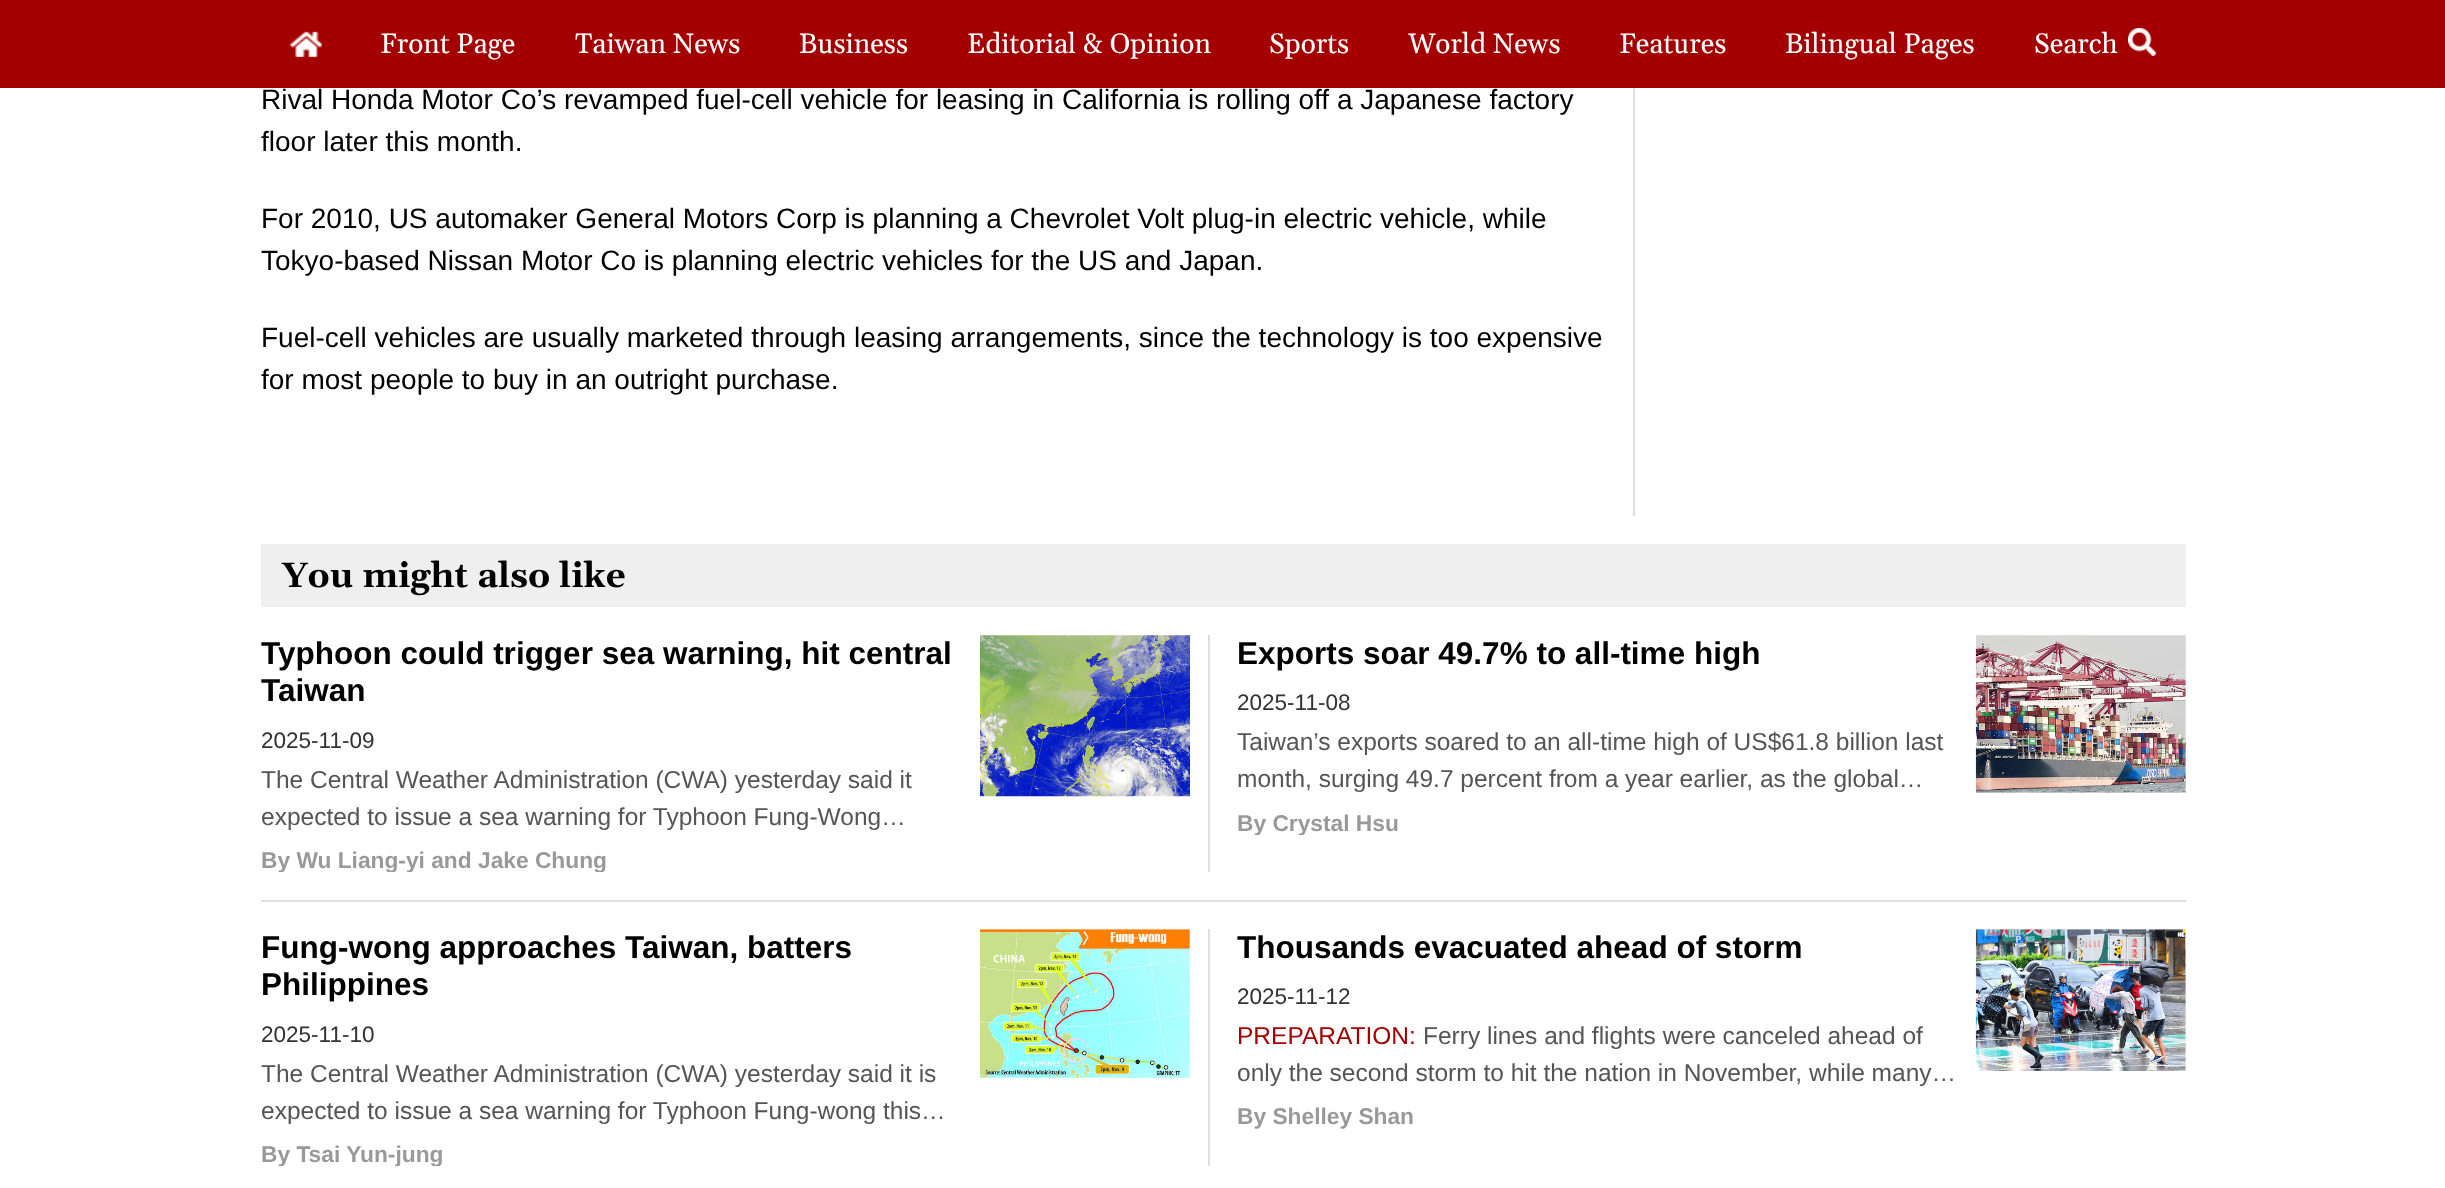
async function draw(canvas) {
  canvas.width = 2445
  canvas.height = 1188
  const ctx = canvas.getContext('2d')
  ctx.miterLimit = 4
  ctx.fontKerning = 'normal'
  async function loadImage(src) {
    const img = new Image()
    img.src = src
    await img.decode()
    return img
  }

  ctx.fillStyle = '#fff'
  ctx.fillRect(0, 0, 2445, 1188)
  ctx.fillStyle = '#a40001'
  ctx.fillRect(0, 0, 2445, 88)
  ctx.drawImage(await loadImage('image0.png'), 289, 31, 33, 27)
  ctx.font = '28px Gelasio'
  ctx.fillStyle = '#fff'
  ctx.fillText('Front Page', 380, 53)
  ctx.fillText('Taiwan News', 575, 53)
  ctx.fillText('Business', 799, 53)
  ctx.fillText('Editorial & Opinion', 967, 53)
  ctx.fillText('Sports', 1269, 53)
  ctx.fillText('World News', 1408, 53)
  ctx.fillText('Features', 1619, 53)
  ctx.fillText('Bilingual Pages', 1785, 53)
  ctx.fillText('Search', 2034, 53)
  ctx.drawImage(await loadImage('image1.png'), 2128, 28, 29, 28)
  ctx.fillStyle = '#dedede'
  ctx.fillRect(1633, 88, 2, 428)
  ctx.font = '28px Liberation Sans'
  ctx.fillStyle = '#000'
  ctx.fillText('Rival Honda Motor Co’s revamped fuel-cell vehicle for leasing in California is rolling off a Japanese factory', 261, 109)
  ctx.fillText('floor later this month.', 261, 151)
  ctx.fillText('For 2010, US automaker General Motors Corp is planning a Chevrolet Volt plug-in electric vehicle, while', 261, 228)
  ctx.fillText('Tokyo-based Nissan Motor Co is planning electric vehicles for the US and Japan.', 261, 270)
  ctx.fillText('Fuel-cell vehicles are usually marketed through leasing arrangements, since the technology is too expensive', 261, 347)
  ctx.fillText('for most people to buy in an outright purchase.', 261, 389)
  ctx.fillStyle = '#efefef'
  ctx.fillRect(261, 544, 1925, 63)
  ctx.font = 'bold 35px Gelasio'
  ctx.fillStyle = '#000'
  ctx.fillText('You might also like', 282, 587)
  ctx.fillStyle = '#dedede'
  ctx.fillRect(1208, 635, 2, 237)
  ctx.font = 'bold 31.5px Liberation Sans'
  ctx.fillStyle = '#000'
  ctx.fillText('Typhoon could trigger sea warning, hit central', 261, 664)
  ctx.fillText('Taiwan', 261, 701)
  ctx.drawImage(await loadImage('image2.png'), 980, 635, 210, 162)
  ctx.font = '22.5px Liberation Sans'
  ctx.fillStyle = '#333'
  ctx.fillText('2025-11-09', 261, 748)
  ctx.font = '24.5px Liberation Sans'
  ctx.fillStyle = '#555'
  ctx.fillText('The Central Weather Administration (CWA) yesterday said it', 261, 788)
  ctx.fillText('expected to issue a sea warning for Typhoon Fung-Wong…', 261, 825)
  ctx.save()
  ctx.beginPath()
  ctx.rect(261, 635, 947, 237)
  ctx.clip()
  ctx.font = 'bold 22.75px Liberation Sans'
  ctx.fillStyle = '#999'
  ctx.fillText('By Wu Liang-yi and Jake Chung', 261, 868)
  ctx.restore()
  ctx.font = 'bold 31.5px Liberation Sans'
  ctx.fillStyle = '#000'
  ctx.fillText('Exports soar 49.7% to all-time high', 1237, 664)
  ctx.fillStyle = '#efefef'
  ctx.fillRect(1976, 635, 210, 158)
  ctx.drawImage(await loadImage('image3.png'), 1975, 635, 211, 158)
  ctx.font = '22.5px Liberation Sans'
  ctx.fillStyle = '#333'
  ctx.fillText('2025-11-08', 1237, 710)
  ctx.font = '24.5px Liberation Sans'
  ctx.fillStyle = '#555'
  ctx.fillText('Taiwan’s exports soared to an all-time high of US$61.8 billion last', 1237, 750)
  ctx.fillText('month, surging 49.7 percent from a year earlier, as the global…', 1237, 787)
  ctx.save()
  ctx.beginPath()
  ctx.rect(1237, 635, 949, 200)
  ctx.clip()
  ctx.font = 'bold 22.75px Liberation Sans'
  ctx.fillStyle = '#999'
  ctx.fillText('By Crystal Hsu', 1237, 831)
  ctx.restore()
  ctx.fillStyle = '#dedede'
  ctx.fillRect(261, 900, 1925, 2)
  ctx.fillRect(1208, 929, 2, 237)
  ctx.font = 'bold 31.5px Liberation Sans'
  ctx.fillStyle = '#000'
  ctx.fillText('Fung-wong approaches Taiwan, batters', 261, 958)
  ctx.fillText('Philippines', 261, 995)
  ctx.fillStyle = '#efefef'
  ctx.fillRect(980, 929, 210, 1)
  ctx.drawImage(await loadImage('image4.png'), 980, 929, 210, 149)
  ctx.font = '22.5px Liberation Sans'
  ctx.fillStyle = '#333'
  ctx.fillText('2025-11-10', 261, 1042)
  ctx.font = '24.5px Liberation Sans'
  ctx.fillStyle = '#555'
  ctx.fillText('The Central Weather Administration (CWA) yesterday said it is', 261, 1082)
  ctx.fillText('expected to issue a sea warning for Typhoon Fung-wong this…', 261, 1119)
  ctx.save()
  ctx.beginPath()
  ctx.rect(261, 929, 947, 237)
  ctx.clip()
  ctx.font = 'bold 22.75px Liberation Sans'
  ctx.fillStyle = '#999'
  ctx.fillText('By Tsai Yun-jung', 261, 1162)
  ctx.restore()
  ctx.font = 'bold 31.5px Liberation Sans'
  ctx.fillStyle = '#000'
  ctx.fillText('Thousands evacuated ahead of storm', 1237, 958)
  ctx.fillStyle = '#efefef'
  ctx.fillRect(1976, 929, 210, 142)
  ctx.drawImage(await loadImage('image5.png'), 1975, 929, 211, 142)
  ctx.font = '22.5px Liberation Sans'
  ctx.fillStyle = '#333'
  ctx.fillText('2025-11-12', 1237, 1004)
  ctx.font = '24.5px Liberation Sans'
  ctx.fillStyle = '#a40001'
  ctx.fillText('PREPARATION:', 1237, 1044)
  ctx.fillStyle = '#555'
  ctx.fillText('Ferry lines and flights were canceled ahead of', 1423, 1044)
  ctx.fillText('only the second storm to hit the nation in November, while many…', 1237, 1081)
  ctx.font = 'bold 22.75px Liberation Sans'
  ctx.fillStyle = '#999'
  ctx.fillText('By Shelley Shan', 1237, 1124)
}

draw(document.querySelector('canvas'))
